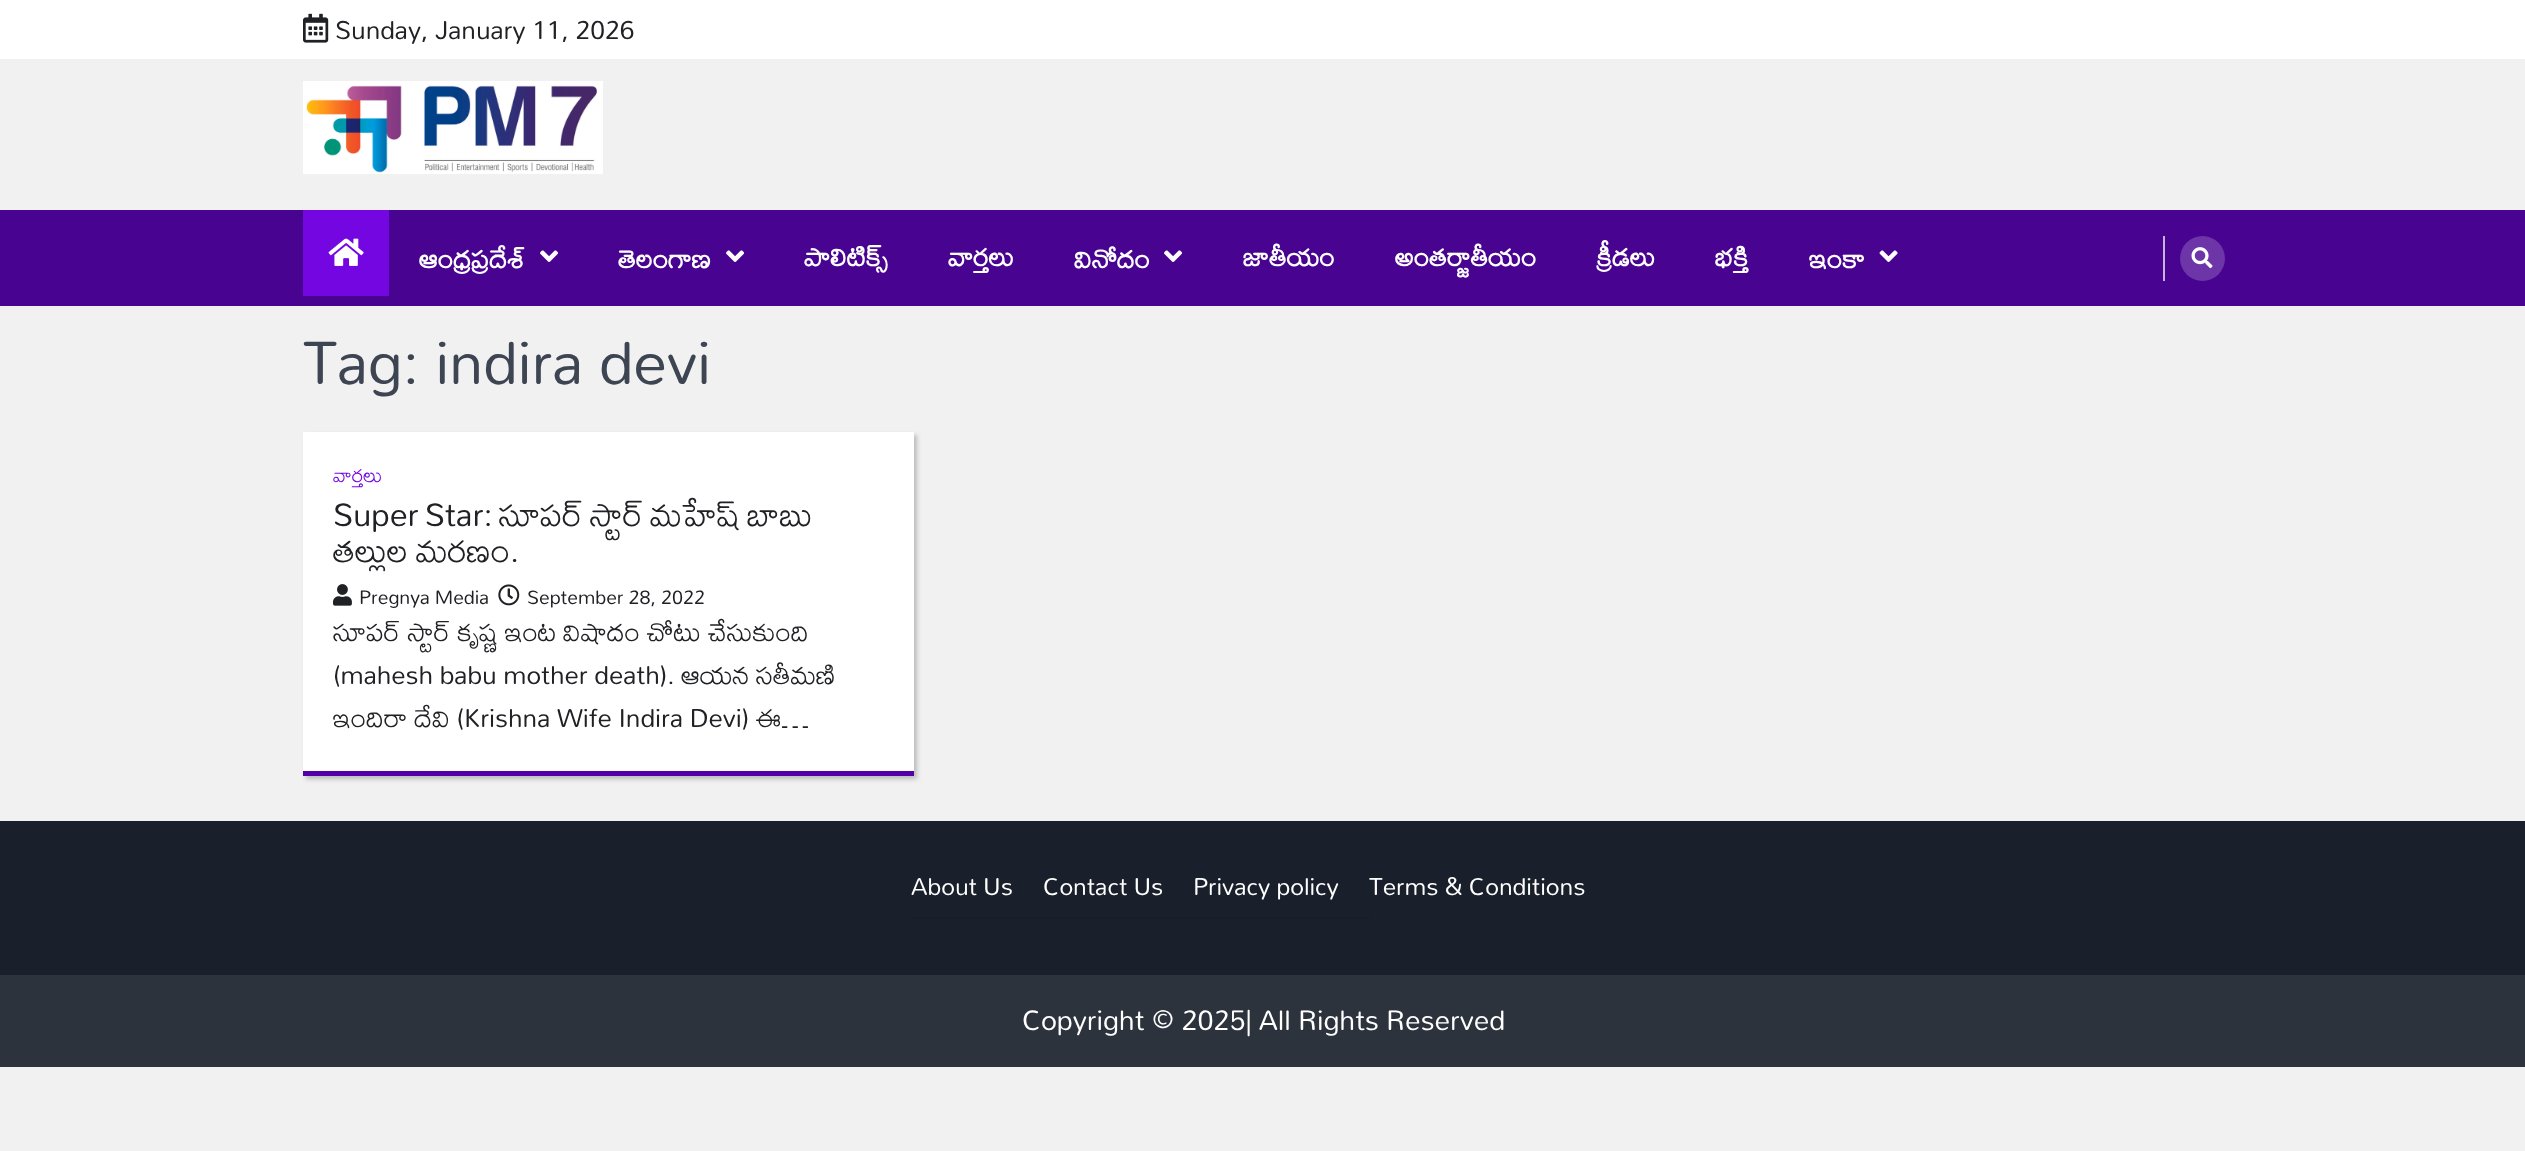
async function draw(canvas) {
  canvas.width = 2525
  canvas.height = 1151
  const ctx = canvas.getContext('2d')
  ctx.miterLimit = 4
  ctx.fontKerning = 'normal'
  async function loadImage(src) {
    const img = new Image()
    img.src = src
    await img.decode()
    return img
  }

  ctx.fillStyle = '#f1f1f1'
  ctx.fillRect(0, 0, 2525, 1151)
  ctx.fillStyle = '#fff'
  ctx.fillRect(0, 0, 2525, 59)
  ctx.drawImage(await loadImage('image0.png'), 303, 13, 26, 30)
  ctx.font = '28.75px Mallanna'
  ctx.fillStyle = '#202124'
  ctx.fillText('Sunday, January 11, 2026', 335, 39)
  ctx.drawImage(await loadImage('image1.png'), 303, 81, 300, 93)
  ctx.fillStyle = '#490391'
  ctx.fillRect(0, 210, 2525, 96)
  ctx.fillStyle = '#7406e2'
  ctx.fillRect(303, 210, 86, 86)
  ctx.drawImage(await loadImage('image2.png'), 328, 238, 36, 28)
  ctx.font = 'bold 28.75px Mallanna'
  ctx.fillStyle = '#fff'
  ctx.fillText('ఆంధ్రప్రదేశ్', 419, 268)
  ctx.drawImage(await loadImage('image3.png'), 540, 250, 18, 12)
  ctx.fillText('తెలంగాణ', 618, 268)
  ctx.drawImage(await loadImage('image3.png'), 726, 250, 18, 12)
  ctx.fillText('పాలిటిక్స్', 804, 266)
  ctx.fillText('వార్తలు', 948, 266)
  ctx.fillText('వినోదం', 1074, 268)
  ctx.drawImage(await loadImage('image3.png'), 1164, 250, 18, 12)
  ctx.fillText('జాతీయం', 1243, 266)
  ctx.fillText('అంతర్జాతీయం', 1395, 266)
  ctx.fillText('క్రీడలు', 1596, 266)
  ctx.fillText('భక్తి', 1715, 266)
  ctx.fillText('ఇంకా', 1809, 268)
  ctx.drawImage(await loadImage('image4.png'), 1879, 250, 19, 12)
  ctx.fillStyle = '#c8b3de'
  ctx.fillRect(2163, 236, 2, 45)
  ctx.fillStyle = '#6d35a7'
  ctx.beginPath()
  ctx.arc(2202.5, 258.5, 22.5, 0, 2 * Math.PI)
  ctx.fill()
  ctx.drawImage(await loadImage('image5.png'), 2191, 247, 22, 22)
  ctx.font = '67.5px Mallanna'
  ctx.fillStyle = '#3d4452'
  ctx.fillText('Tag: indira devi', 303, 384)
  ctx.fillStyle = '#bbb'
  ctx.filter = 'blur(2px)'
  ctx.beginPath()
  ctx.rect(306, 435, 611, 344)
  ctx.fill()
  ctx.filter = 'none'
  ctx.fillStyle = '#fff'
  ctx.fillRect(303, 432, 611, 339)
  ctx.fillStyle = '#5300a9'
  ctx.fillRect(303, 771, 611, 5)
  ctx.font = '21.5px Mallanna'
  ctx.fillStyle = '#7406e2'
  ctx.fillText('వార్తలు', 333, 482)
  ctx.wordSpacing = '-2.25px'
  ctx.font = '36px Mallanna'
  ctx.fillStyle = '#202124'
  ctx.fillText('Super Star: సూపర్ స్టార్ మహేష్ బాబు', 333, 526)
  ctx.wordSpacing = '0px'
  ctx.fillText('తల్లుల మరణం.', 333, 562)
  ctx.drawImage(await loadImage('image6.png'), 333, 584, 19, 22)
  ctx.font = '21.5px Mallanna'
  ctx.fillText('Pregnya Media', 359, 604)
  ctx.drawImage(await loadImage('image7.png'), 498, 584, 22, 22)
  ctx.fillText('September 28, 2022', 527, 604)
  ctx.font = '28.75px Mallanna'
  ctx.fillText('సూపర్ స్టార్ కృష్ణ ఇంట విషాదం చోటు చేసుకుంది', 333, 641)
  ctx.fillText('(mahesh babu mother death). ఆయన సతీమణి', 333, 684)
  ctx.fillText('ఇందిరా దేవి (Krishna Wife Indira Devi) ఈ…', 333, 727)
  ctx.fillStyle = '#1a202b'
  ctx.fillRect(0, 821, 2525, 154)
  ctx.fillStyle = '#171d27'
  ctx.fillRect(911, 917, 459, 2)
  ctx.font = '27px Mallanna'
  ctx.fillStyle = '#fff'
  ctx.fillText('About Us', 911, 895)
  ctx.fillText('Contact Us', 1043, 895)
  ctx.fillText('Privacy policy', 1193, 895)
  ctx.fillText('Terms & Conditions', 1369, 895)
  ctx.fillStyle = '#2d333c'
  ctx.fillRect(0, 975, 2525, 92)
  ctx.font = '31.25px Mallanna'
  ctx.fillStyle = '#fff'
  ctx.fillText('Copyright © 2025| All Rights Reserved', 1022, 1030)
}

draw(document.querySelector('canvas'))
